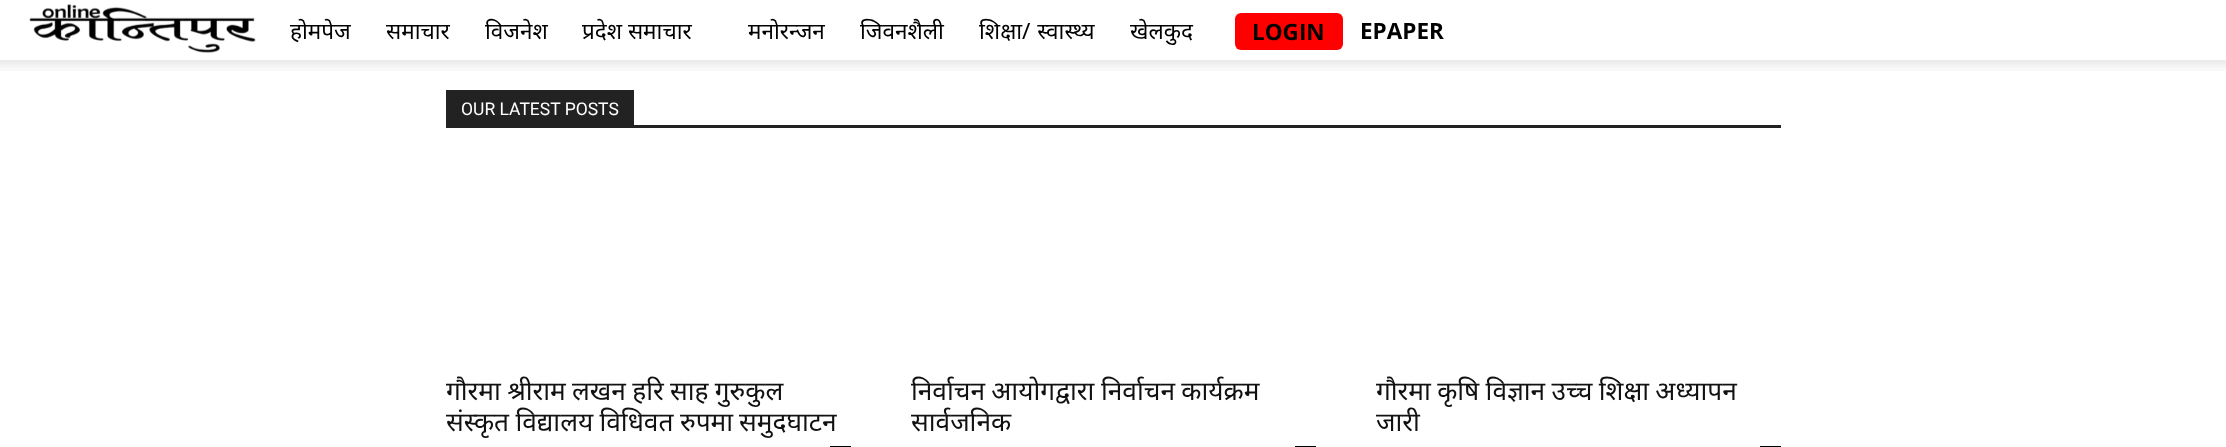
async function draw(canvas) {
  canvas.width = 2226
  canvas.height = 447
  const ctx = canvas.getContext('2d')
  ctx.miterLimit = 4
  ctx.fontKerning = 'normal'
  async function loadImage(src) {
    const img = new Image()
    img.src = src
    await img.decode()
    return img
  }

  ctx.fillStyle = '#fff'
  ctx.fillRect(0, 0, 2226, 447)
  ctx.drawImage(await loadImage('image0.png'), 29, 4, 227, 49)
  ctx.font = '22.5px Noto Sans'
  ctx.fillStyle = '#000'
  ctx.fillText('होमपेज', 290, 39)
  ctx.fillText('समाचार', 386, 39)
  ctx.fillText('विजनेश', 485, 39)
  ctx.fillText('प्रदेश समाचार', 582, 39)
  ctx.fillText('मनोरन्जन', 748, 39)
  ctx.fillText('जिवनशैली', 860, 39)
  ctx.wordSpacing = '1px'
  ctx.fillText('शिक्षा/ स्वास्थ्य', 979, 39)
  ctx.wordSpacing = '0px'
  ctx.fillText('खेलकुद', 1130, 39)
  ctx.fillStyle = '#f00'
  ctx.beginPath()
  ctx.roundRect(1235, 13, 108, 37, 6)
  ctx.fill()
  ctx.font = 'bold 22.5px Open Sans'
  ctx.fillStyle = '#000'
  ctx.fillText('LOGIN', 1252, 40)
  ctx.fillText('EPAPER', 1360, 39)
  ctx.drawImage(await loadImage('image1.png'), 0, 60, 2226, 11)
  ctx.fillStyle = '#222'
  ctx.fillRect(446, 125, 1335, 3)
  ctx.fillRect(446, 90, 188, 35)
  ctx.font = '17.5px Roboto'
  ctx.fillStyle = '#fff'
  ctx.fillText('OUR LATEST POSTS', 461, 115)
  ctx.wordSpacing = '-0.5px'
  ctx.font = '26.25px Noto Sans'
  ctx.fillStyle = '#111'
  ctx.fillText('गौरमा श्रीराम लखन हरि साह गुरुकुल', 446, 400)
  ctx.fillText('संस्कृत विद्यालय विधिवत', 446, 431)
  ctx.wordSpacing = '0px'
  ctx.fillText('रुपमा', 680, 431)
  ctx.fillText('समुदघाटन', 739, 431)
  ctx.fillStyle = '#000'
  ctx.fillRect(830, 446, 21, 1)
  ctx.wordSpacing = '-0.5px'
  ctx.fillStyle = '#111'
  ctx.fillText('निर्वाचन आयोगद्वारा', 911, 400)
  ctx.fillText('निर्वाचन कार्यक्रम', 1101, 400)
  ctx.wordSpacing = '0px'
  ctx.fillText('सार्वजनिक', 911, 431)
  ctx.fillStyle = '#000'
  ctx.fillRect(1295, 446, 21, 1)
  ctx.wordSpacing = '-0.5px'
  ctx.fillStyle = '#111'
  ctx.fillText('गौरमा कृषि विज्ञान उच्च शिक्षा अध्यापन', 1376, 400)
  ctx.wordSpacing = '0px'
  ctx.fillText('जारी', 1376, 431)
  ctx.fillStyle = '#000'
  ctx.fillRect(1760, 446, 21, 1)
}

draw(document.querySelector('canvas'))
